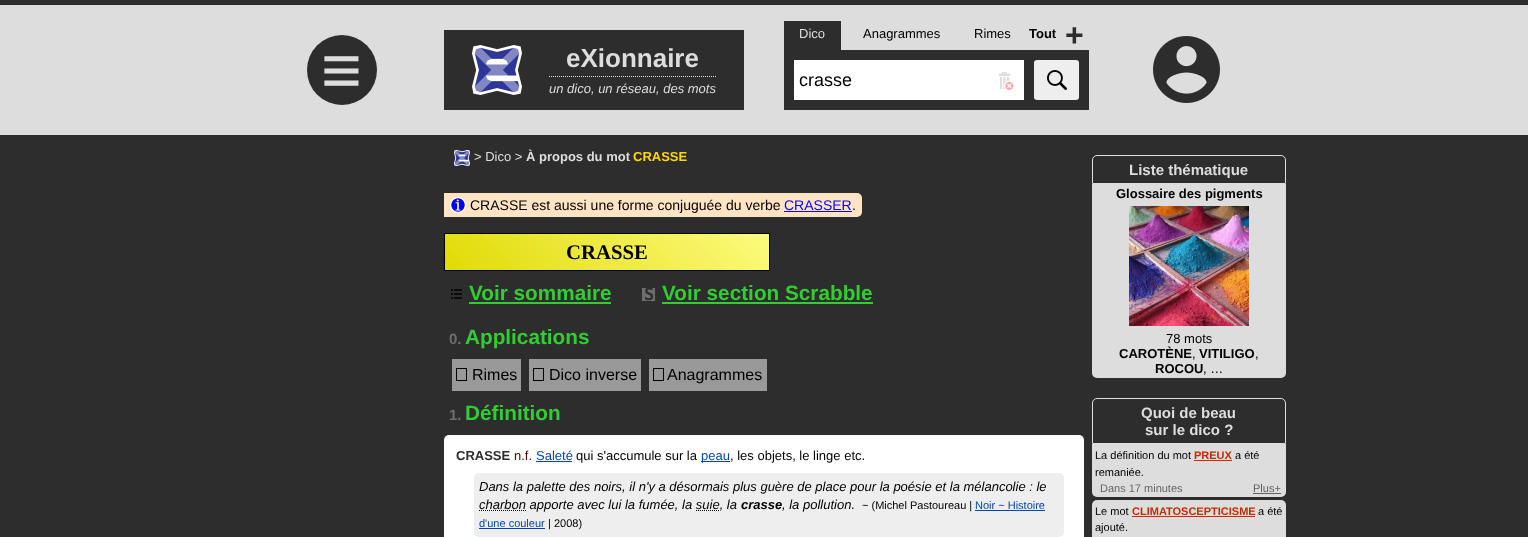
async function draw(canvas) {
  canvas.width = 1528
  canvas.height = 537
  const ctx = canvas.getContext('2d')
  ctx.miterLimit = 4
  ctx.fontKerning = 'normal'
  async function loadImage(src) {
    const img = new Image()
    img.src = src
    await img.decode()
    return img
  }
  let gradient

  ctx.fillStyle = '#2d2d2d'
  ctx.fillRect(0, 0, 1528, 537)
  ctx.fillStyle = '#ddd'
  ctx.fillRect(0, 5, 1528, 130)
  ctx.fillStyle = '#2d2d2d'
  ctx.beginPath()
  ctx.arc(342, 70, 35, 0, 2 * Math.PI)
  ctx.fill()
  ctx.font = '70px Liberation Sans'
  ctx.fillStyle = '#ddd'
  ctx.fillText('≡', 321, 94)
  ctx.fillStyle = '#2d2d2d'
  ctx.fillRect(444, 30, 300, 80)
  ctx.drawImage(await loadImage('image0.png'), 472, 45, 50, 50)
  ctx.font = 'bold 26px Liberation Sans'
  ctx.fillStyle = '#ddd'
  ctx.fillText('eXionnaire', 566, 67)
  ctx.beginPath()
  ctx.moveTo(549, 76.5)
  ctx.lineTo(716, 76.5)
  ctx.strokeStyle = '#ddd'
  ctx.setLineDash([1, 1])
  ctx.stroke()
  ctx.font = 'italic 13px Liberation Sans'
  ctx.fillText('un dico, un réseau, des mots', 549, 93)
  ctx.drawImage(await loadImage('image1.png'), 1153, 36, 67, 67)
  ctx.fillStyle = '#2d2d2d'
  ctx.fillRect(784, 21, 57, 29)
  ctx.font = '13px Liberation Sans'
  ctx.fillStyle = '#ddd'
  ctx.fillText('Dico', 799, 38)
  ctx.fillStyle = '#000'
  ctx.fillText('Anagrammes', 863, 38)
  ctx.fillText('Rimes', 974, 38)
  ctx.font = 'bold 13px Liberation Sans'
  ctx.fillText('Tout', 1029, 38)
  ctx.font = 'bold 32px Liberation Sans'
  ctx.fillStyle = '#2d2d2d'
  ctx.fillText('+', 1065, 46)
  ctx.fillRect(784, 50, 305, 60)
  ctx.fillStyle = '#fff'
  ctx.fillRect(794, 60, 230, 40)
  ctx.font = '18px Liberation Sans'
  ctx.fillStyle = '#000'
  ctx.fillText('crasse', 799, 86)
  ctx.drawImage(await loadImage('image2.png'), 998, 72, 16, 18)
  ctx.fillStyle = '#eee'
  ctx.beginPath()
  ctx.roundRect(1034, 60, 45, 40, 3)
  ctx.fill()
  ctx.drawImage(await loadImage('image3.png'), 1047, 70, 20, 20)
  ctx.drawImage(await loadImage('image4.png'), 454, 150, 16, 16)
  ctx.font = '13px Liberation Sans'
  ctx.fillStyle = '#ddd'
  ctx.fillText('> Dico >', 474, 161)
  ctx.font = 'bold 13px Liberation Sans'
  ctx.fillText('À propos du mot', 526, 161)
  ctx.fillStyle = '#ffd700'
  ctx.fillText('CRASSE', 633, 161)
  ctx.fillStyle = '#ffe4c4'
  ctx.beginPath()
  ctx.roundRect(444, 193, 418, 24, [0, 5, 5, 0])
  ctx.fill()
  ctx.drawImage(await loadImage('image5.png'), 450, 197, 16, 16)
  ctx.font = '14px Liberation Sans'
  ctx.fillStyle = '#000'
  ctx.fillText('CRASSE est aussi une forme conjuguée du verbe', 470, 210)
  ctx.fillStyle = '#00f'
  ctx.fillText('CRASSER', 784, 210)
  ctx.fillRect(784, 211, 68, 1)
  ctx.fillStyle = '#000'
  ctx.fillText('.', 852, 210)
  gradient = ctx.createLinearGradient(517, 342, 697, 162)
  gradient.addColorStop(0, '#e1da05')
  gradient.addColorStop(1, '#fdfb7f')
  ctx.fillStyle = gradient
  ctx.fillRect(445, 234, 324, 36)
  ctx.strokeStyle = '#000'
  ctx.setLineDash([])
  ctx.strokeRect(444.5, 233.5, 325, 37)
  ctx.font = 'bold 20.75px Liberation Serif'
  ctx.fillStyle = '#000'
  ctx.fillText('CRASSE', 566, 259)
  ctx.drawImage(await loadImage('image6.png'), 451, 289, 11, 10)
  ctx.font = 'bold 20.75px Liberation Sans'
  ctx.fillStyle = '#32cd32'
  ctx.fillText('Voir sommaire', 469, 300)
  ctx.fillRect(469, 302, 142, 2)
  ctx.fillStyle = '#6e6e6e'
  ctx.fillRect(642, 288, 13, 13)
  ctx.font = 'bold 17px DejaVu Sans Mono'
  ctx.fillStyle = '#2d2d2d'
  ctx.fillText('S', 644, 300)
  ctx.font = 'bold 20.75px Liberation Sans'
  ctx.fillStyle = '#32cd32'
  ctx.fillText('Voir section Scrabble', 662, 300)
  ctx.fillRect(662, 302, 211, 2)
  ctx.font = 'bold 15px Liberation Sans'
  ctx.fillStyle = '#6e6e6e'
  ctx.fillText('0.', 449, 344)
  ctx.font = 'bold 20.75px Liberation Sans'
  ctx.fillStyle = '#32cd32'
  ctx.fillText('Applications', 465, 344)
  ctx.fillStyle = '#999'
  ctx.fillRect(452, 359, 69, 32)
  ctx.strokeRect(456.5, 368.5, 10, 12)
  ctx.font = '16px Liberation Sans'
  ctx.fillStyle = '#000'
  ctx.fillText('Rimes', 472, 380)
  ctx.fillStyle = '#999'
  ctx.fillRect(529, 359, 112, 32)
  ctx.strokeRect(533.5, 368.5, 10, 12)
  ctx.fillStyle = '#000'
  ctx.fillText('Dico inverse', 549, 380)
  ctx.fillStyle = '#999'
  ctx.fillRect(649, 359, 118, 32)
  ctx.strokeRect(653.5, 368.5, 10, 12)
  ctx.fillStyle = '#000'
  ctx.fillText('Anagrammes', 667, 380)
  ctx.font = 'bold 15px Liberation Sans'
  ctx.fillStyle = '#6e6e6e'
  ctx.fillText('1.', 449, 420)
  ctx.font = 'bold 20.75px Liberation Sans'
  ctx.fillStyle = '#32cd32'
  ctx.fillText('Définition', 465, 420)
  ctx.fillStyle = '#fff'
  ctx.beginPath()
  ctx.roundRect(444, 435, 640, 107, 5)
  ctx.fill()
  ctx.font = 'bold 13px Liberation Sans'
  ctx.fillStyle = '#2d2d2d'
  ctx.fillText('CRASSE', 456, 460)
  ctx.font = '13px Liberation Sans'
  ctx.fillStyle = '#500'
  ctx.fillText('n.f.', 514, 460)
  ctx.fillStyle = '#0645ad'
  ctx.fillText('Saleté', 536, 460)
  ctx.fillRect(536, 461, 36, 1)
  ctx.fillStyle = '#000'
  ctx.fillText('qui s\'accumule sur la', 576, 460)
  ctx.fillStyle = '#0645ad'
  ctx.fillRect(701, 461, 29, 1)
  ctx.fillText('peau', 701, 460)
  ctx.fillStyle = '#000'
  ctx.fillText(', les objets, le linge etc.', 730, 460)
  ctx.fillStyle = '#eee'
  ctx.beginPath()
  ctx.roundRect(474, 473, 590, 64, 5)
  ctx.fill()
  ctx.font = 'italic 13px Liberation Sans'
  ctx.fillStyle = '#000'
  ctx.fillText('Dans la palette des noirs, il n\'y a désormais plus guère de place pour la poésie et la mélancolie : le', 479, 491)
  ctx.beginPath()
  ctx.moveTo(479, 510.5)
  ctx.lineTo(526, 510.5)
  ctx.setLineDash([1, 1])
  ctx.stroke()
  ctx.fillText('charbon apporte avec lui la fumée, la suie, la', 479, 509)
  ctx.beginPath()
  ctx.moveTo(696, 510.5)
  ctx.lineTo(719.5, 510.5)
  ctx.stroke()
  ctx.font = 'italic bold 13px Liberation Sans'
  ctx.fillText('crasse', 741, 509)
  ctx.font = 'italic 13px Liberation Sans'
  ctx.fillText(', la pollution.', 782, 509)
  ctx.font = '11px Liberation Sans'
  ctx.fillText('~ (Michel Pastoureau |', 862, 509)
  ctx.fillStyle = '#0645ad'
  ctx.fillText('Noir ~ Histoire', 975, 509)
  ctx.fillRect(975, 510, 70, 1)
  ctx.fillText('d\'une couleur', 479, 527)
  ctx.fillRect(479, 528, 66, 1)
  ctx.fillStyle = '#000'
  ctx.fillText('| 2008)', 548, 527)
  ctx.beginPath()
  ctx.roundRect(1092.5, 155.5, 193, 28, [4.5, 4.5, 0, 0])
  ctx.strokeStyle = '#ddd'
  ctx.setLineDash([])
  ctx.stroke()
  ctx.font = 'bold 15px Liberation Sans'
  ctx.fillStyle = '#ddd'
  ctx.fillText('Liste thématique', 1129, 175)
  ctx.beginPath()
  ctx.roundRect(1092, 184, 194, 194, [0, 0, 5, 5])
  ctx.fill()
  ctx.font = 'bold 13px Liberation Sans'
  ctx.fillStyle = '#000'
  ctx.fillText('Glossaire des pigments', 1116, 198)
  ctx.drawImage(await loadImage('image7.png'), 1129, 206, 120, 120)
  ctx.font = '13px Liberation Sans'
  ctx.fillText('78 mots', 1166, 343)
  ctx.font = 'bold 13px Liberation Sans'
  ctx.fillText('CAROTÈNE', 1119, 358)
  ctx.font = '13px Liberation Sans'
  ctx.fillText(',', 1192, 358)
  ctx.font = 'bold 13px Liberation Sans'
  ctx.fillText('VITILIGO', 1199, 358)
  ctx.font = '13px Liberation Sans'
  ctx.fillText(',', 1255, 358)
  ctx.font = 'bold 13px Liberation Sans'
  ctx.fillText('ROCOU', 1155, 373)
  ctx.font = '13px Liberation Sans'
  ctx.fillText(', …', 1203, 373)
  ctx.beginPath()
  ctx.roundRect(1092.5, 398.5, 193, 45, [4.5, 4.5, 0, 0])
  ctx.stroke()
  ctx.font = 'bold 15px Liberation Sans'
  ctx.fillStyle = '#ddd'
  ctx.fillText('Quoi de beau', 1141, 418)
  ctx.fillText('sur le dico ?', 1145, 435)
  ctx.beginPath()
  ctx.roundRect(1092, 444, 194, 53, [0, 0, 5, 5])
  ctx.fill()
  ctx.font = '11px Liberation Sans'
  ctx.fillStyle = '#000'
  ctx.fillText('La définition du mot', 1095, 459)
  ctx.font = 'bold 11px Liberation Sans'
  ctx.fillStyle = '#c52c03'
  ctx.fillText('PREUX', 1194, 459)
  ctx.fillRect(1194, 460, 38, 1)
  ctx.font = '11px Liberation Sans'
  ctx.fillStyle = '#000'
  ctx.fillText('a été', 1235, 459)
  ctx.fillText('remaniée.', 1095, 476)
  ctx.fillStyle = '#666'
  ctx.fillText('Dans 17 minutes', 1100, 492)
  ctx.fillStyle = '#606060'
  ctx.fillText('Plus+', 1253, 492)
  ctx.fillRect(1253, 493, 28, 1)
  ctx.fillStyle = '#ddd'
  ctx.beginPath()
  ctx.roundRect(1092, 500, 194, 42, 5)
  ctx.fill()
  ctx.fillStyle = '#000'
  ctx.fillText('Le mot', 1095, 515)
  ctx.font = 'bold 11px Liberation Sans'
  ctx.fillStyle = '#c52c03'
  ctx.fillText('CLIMATOSCEPTICISME', 1132, 515)
  ctx.fillRect(1132, 516, 123, 1)
  ctx.font = '11px Liberation Sans'
  ctx.fillStyle = '#000'
  ctx.fillText('a été', 1258, 515)
  ctx.fillText('ajouté.', 1095, 531)
}

draw(document.querySelector('canvas'))
